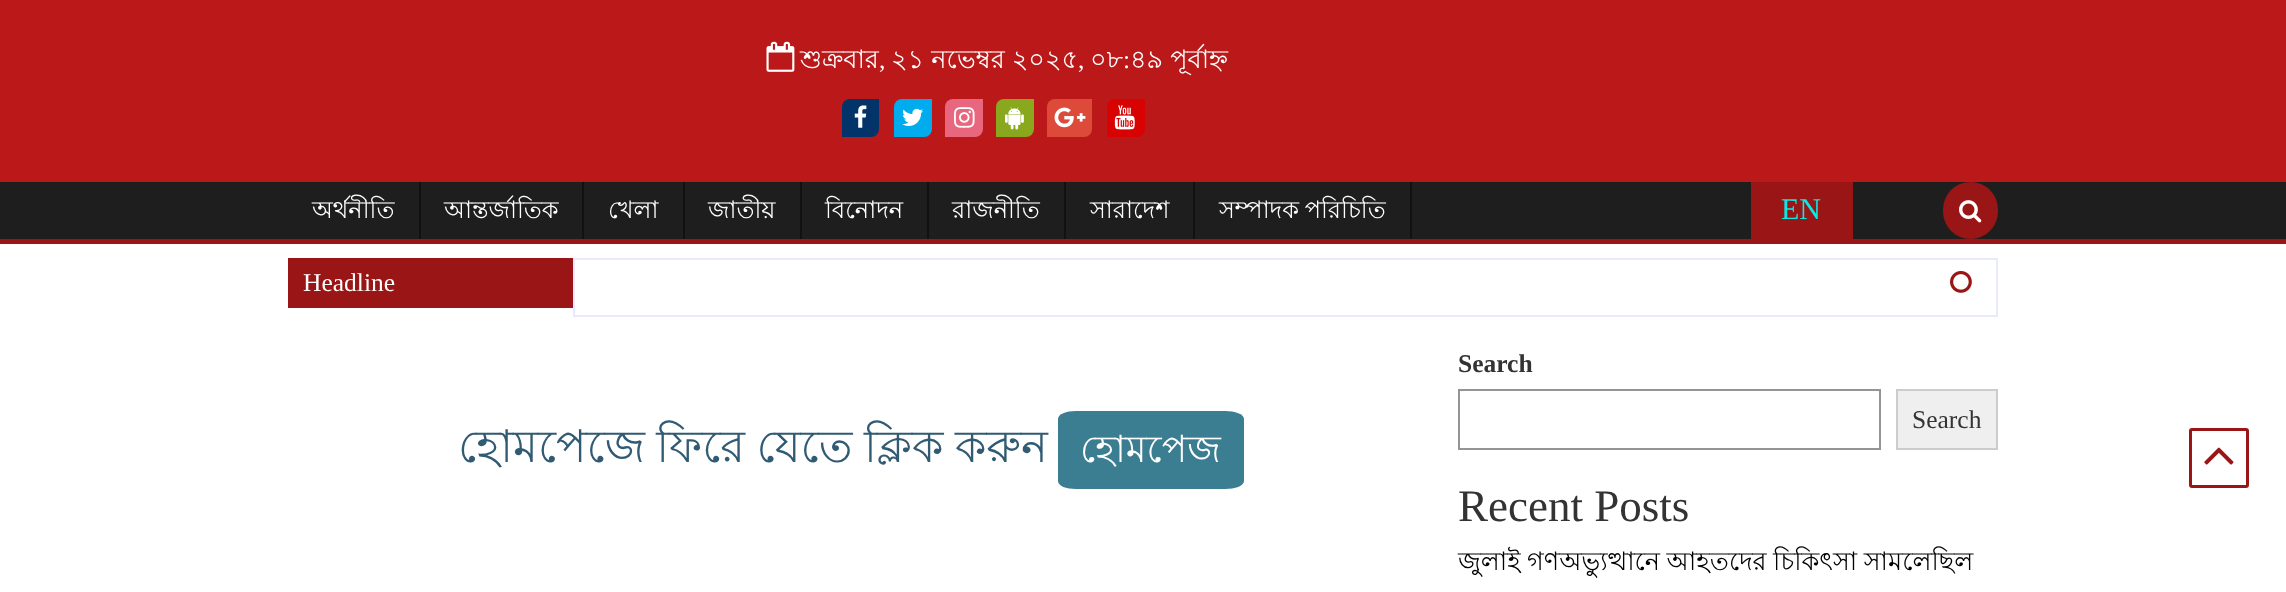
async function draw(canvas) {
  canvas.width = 2286
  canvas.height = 592
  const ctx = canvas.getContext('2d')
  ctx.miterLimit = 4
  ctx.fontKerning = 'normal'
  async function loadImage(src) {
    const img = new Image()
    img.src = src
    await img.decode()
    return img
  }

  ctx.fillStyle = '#fff'
  ctx.fillRect(0, 0, 2286, 592)
  ctx.fillStyle = '#bb1919'
  ctx.fillRect(0, 0, 2286, 182)
  ctx.drawImage(await loadImage('image0.png'), 766, 41, 29, 31)
  ctx.font = '25.5px Lohit Bengali'
  ctx.fillStyle = '#fff'
  ctx.fillText('শুক্রবার', 800, 68)
  ctx.font = '25.5px Liberation Serif'
  ctx.fillText(',', 879, 68)
  ctx.font = '25.5px Lohit Bengali'
  ctx.fillText('২১ নভেম্বর ২০২৫', 891, 68)
  ctx.font = '25.5px Liberation Serif'
  ctx.fillText(',', 1078, 68)
  ctx.font = '25.5px Lohit Bengali'
  ctx.fillText('০৮', 1090, 68)
  ctx.font = '25.5px Liberation Serif'
  ctx.fillText(':', 1123, 68)
  ctx.font = '25.5px Lohit Bengali'
  ctx.fillText('৪৯ পূর্বাহ্ন', 1130, 68)
  ctx.fillStyle = '#023369'
  ctx.beginPath()
  ctx.roundRect(842, 99, 37, 38, [8, 0, 8, 0])
  ctx.fill()
  ctx.drawImage(await loadImage('image1.png'), 854, 105, 13, 23)
  ctx.fillStyle = '#00acee'
  ctx.beginPath()
  ctx.roundRect(894, 99, 38, 38, [8, 0, 8, 0])
  ctx.fill()
  ctx.drawImage(await loadImage('image2.png'), 902, 108, 21, 18)
  ctx.fillStyle = '#e9667f'
  ctx.beginPath()
  ctx.roundRect(945, 99, 38, 38, [8, 0, 8, 0])
  ctx.fill()
  ctx.drawImage(await loadImage('image3.png'), 954, 107, 21, 21)
  ctx.fillStyle = '#89a81e'
  ctx.beginPath()
  ctx.roundRect(996, 99, 38, 38, [8, 0, 8, 0])
  ctx.fill()
  ctx.drawImage(await loadImage('image4.png'), 1005, 107, 19, 23)
  ctx.fillStyle = '#dd4a3a'
  ctx.beginPath()
  ctx.roundRect(1047, 99, 45, 38, [8, 0, 8, 0])
  ctx.fill()
  ctx.drawImage(await loadImage('image5.png'), 1054, 107, 32, 21)
  ctx.fillStyle = '#d80202'
  ctx.beginPath()
  ctx.roundRect(1107, 99, 38, 38, [8, 0, 8, 0])
  ctx.fill()
  ctx.drawImage(await loadImage('image6.png'), 1114, 105, 21, 25)
  ctx.fillStyle = '#1e1e1e'
  ctx.fillRect(0, 182, 2286, 57)
  ctx.fillStyle = '#9a1515'
  ctx.fillRect(0, 239, 2286, 5)
  ctx.fillStyle = '#111'
  ctx.fillRect(419, 182, 2, 57)
  ctx.font = '24px Lohit Bengali'
  ctx.fillStyle = '#fff'
  ctx.fillText('অর্থনীতি', 312, 218)
  ctx.fillStyle = '#111'
  ctx.fillRect(582, 182, 2, 57)
  ctx.fillStyle = '#fff'
  ctx.fillText('আন্তর্জাতিক', 444, 218)
  ctx.fillStyle = '#111'
  ctx.fillRect(683, 182, 2, 57)
  ctx.fillStyle = '#fff'
  ctx.fillText('খেলা', 608, 218)
  ctx.fillStyle = '#111'
  ctx.fillRect(800, 182, 2, 57)
  ctx.fillStyle = '#fff'
  ctx.fillText('জাতীয়', 708, 218)
  ctx.fillStyle = '#111'
  ctx.fillRect(927, 182, 2, 57)
  ctx.fillStyle = '#fff'
  ctx.fillText('বিনোদন', 825, 218)
  ctx.fillStyle = '#111'
  ctx.fillRect(1064, 182, 2, 57)
  ctx.fillStyle = '#fff'
  ctx.fillText('রাজনীতি', 952, 218)
  ctx.fillStyle = '#111'
  ctx.fillRect(1193, 182, 2, 57)
  ctx.fillStyle = '#fff'
  ctx.fillText('সারাদেশ', 1090, 218)
  ctx.fillStyle = '#111'
  ctx.fillRect(1410, 182, 2, 57)
  ctx.wordSpacing = '-1px'
  ctx.fillStyle = '#fff'
  ctx.fillText('সম্পাদক পরিচিতি', 1219, 218)
  ctx.fillStyle = '#9a1515'
  ctx.fillRect(1751, 182, 102, 57)
  ctx.wordSpacing = '0px'
  ctx.font = '30px Liberation Serif'
  ctx.fillStyle = '#07eae6'
  ctx.fillText('EN', 1781, 219)
  ctx.fillStyle = '#9a1515'
  ctx.beginPath()
  ctx.roundRect(1943, 182, 55, 57, 27.5)
  ctx.fill()
  ctx.drawImage(await loadImage('image7.png'), 1959, 200, 23, 23)
  ctx.fillRect(288, 258, 285, 50)
  ctx.font = '25.5px Liberation Serif'
  ctx.fillStyle = '#fff'
  ctx.fillText('Headline', 303, 291)
  ctx.strokeStyle = '#e8e8ff'
  ctx.lineWidth = 2
  ctx.strokeRect(574, 259, 1423, 57)
  ctx.drawImage(await loadImage('image8.png'), 1950, 271, 22, 22)
  ctx.wordSpacing = '-1px'
  ctx.font = '45px Lohit Bengali'
  ctx.fillStyle = '#315b73'
  ctx.fillText('হোমপেজে ফিরে যেতে ক্লিক করুন', 458, 462)
  ctx.fillStyle = '#3c7e91'
  ctx.beginPath()
  ctx.moveTo(1076, 411)
  ctx.lineTo(1225, 411)
  ctx.bezierCurveTo(1235, 411, 1244, 414, 1244, 419)
  ctx.lineTo(1244, 481)
  ctx.bezierCurveTo(1244, 486, 1235, 489, 1225, 489)
  ctx.lineTo(1076, 489)
  ctx.bezierCurveTo(1066, 489, 1058, 486, 1058, 481)
  ctx.lineTo(1058, 419)
  ctx.bezierCurveTo(1058, 414, 1066, 411, 1076, 411)
  ctx.closePath()
  ctx.fill()
  ctx.wordSpacing = '0px'
  ctx.font = '37.5px Lohit Bengali'
  ctx.fillStyle = '#fff'
  ctx.fillText('হোমপেজ', 1080, 462)
  ctx.font = 'bold 25.5px Liberation Serif'
  ctx.fillStyle = '#333'
  ctx.fillText('Search', 1458, 372)
  ctx.strokeStyle = '#949494'
  ctx.strokeRect(1459, 390, 421, 59)
  ctx.fillStyle = '#efefef'
  ctx.beginPath()
  ctx.rect(1897, 390, 100, 59)
  ctx.fill()
  ctx.strokeStyle = '#ccc'
  ctx.stroke()
  ctx.font = '25.5px Liberation Serif'
  ctx.fillStyle = '#333'
  ctx.fillText('Search', 1912, 428)
  ctx.font = '45px Liberation Serif'
  ctx.fillText('Recent Posts', 1458, 521)
  ctx.wordSpacing = '-0.5px'
  ctx.font = '25.5px Lohit Bengali'
  ctx.fillStyle = '#000'
  ctx.fillText('জুলাই গণঅভ্যুত্থানে আহতদের চিকিৎসা সামলেছিল', 1458, 570)
  ctx.beginPath()
  ctx.roundRect(2190.5, 429.5, 57, 57, 1.5)
  ctx.strokeStyle = '#9a1515'
  ctx.lineWidth = 3
  ctx.stroke()
  ctx.drawImage(await loadImage('image9.png'), 2204, 447, 30, 18)
}

draw(document.querySelector('canvas'))
